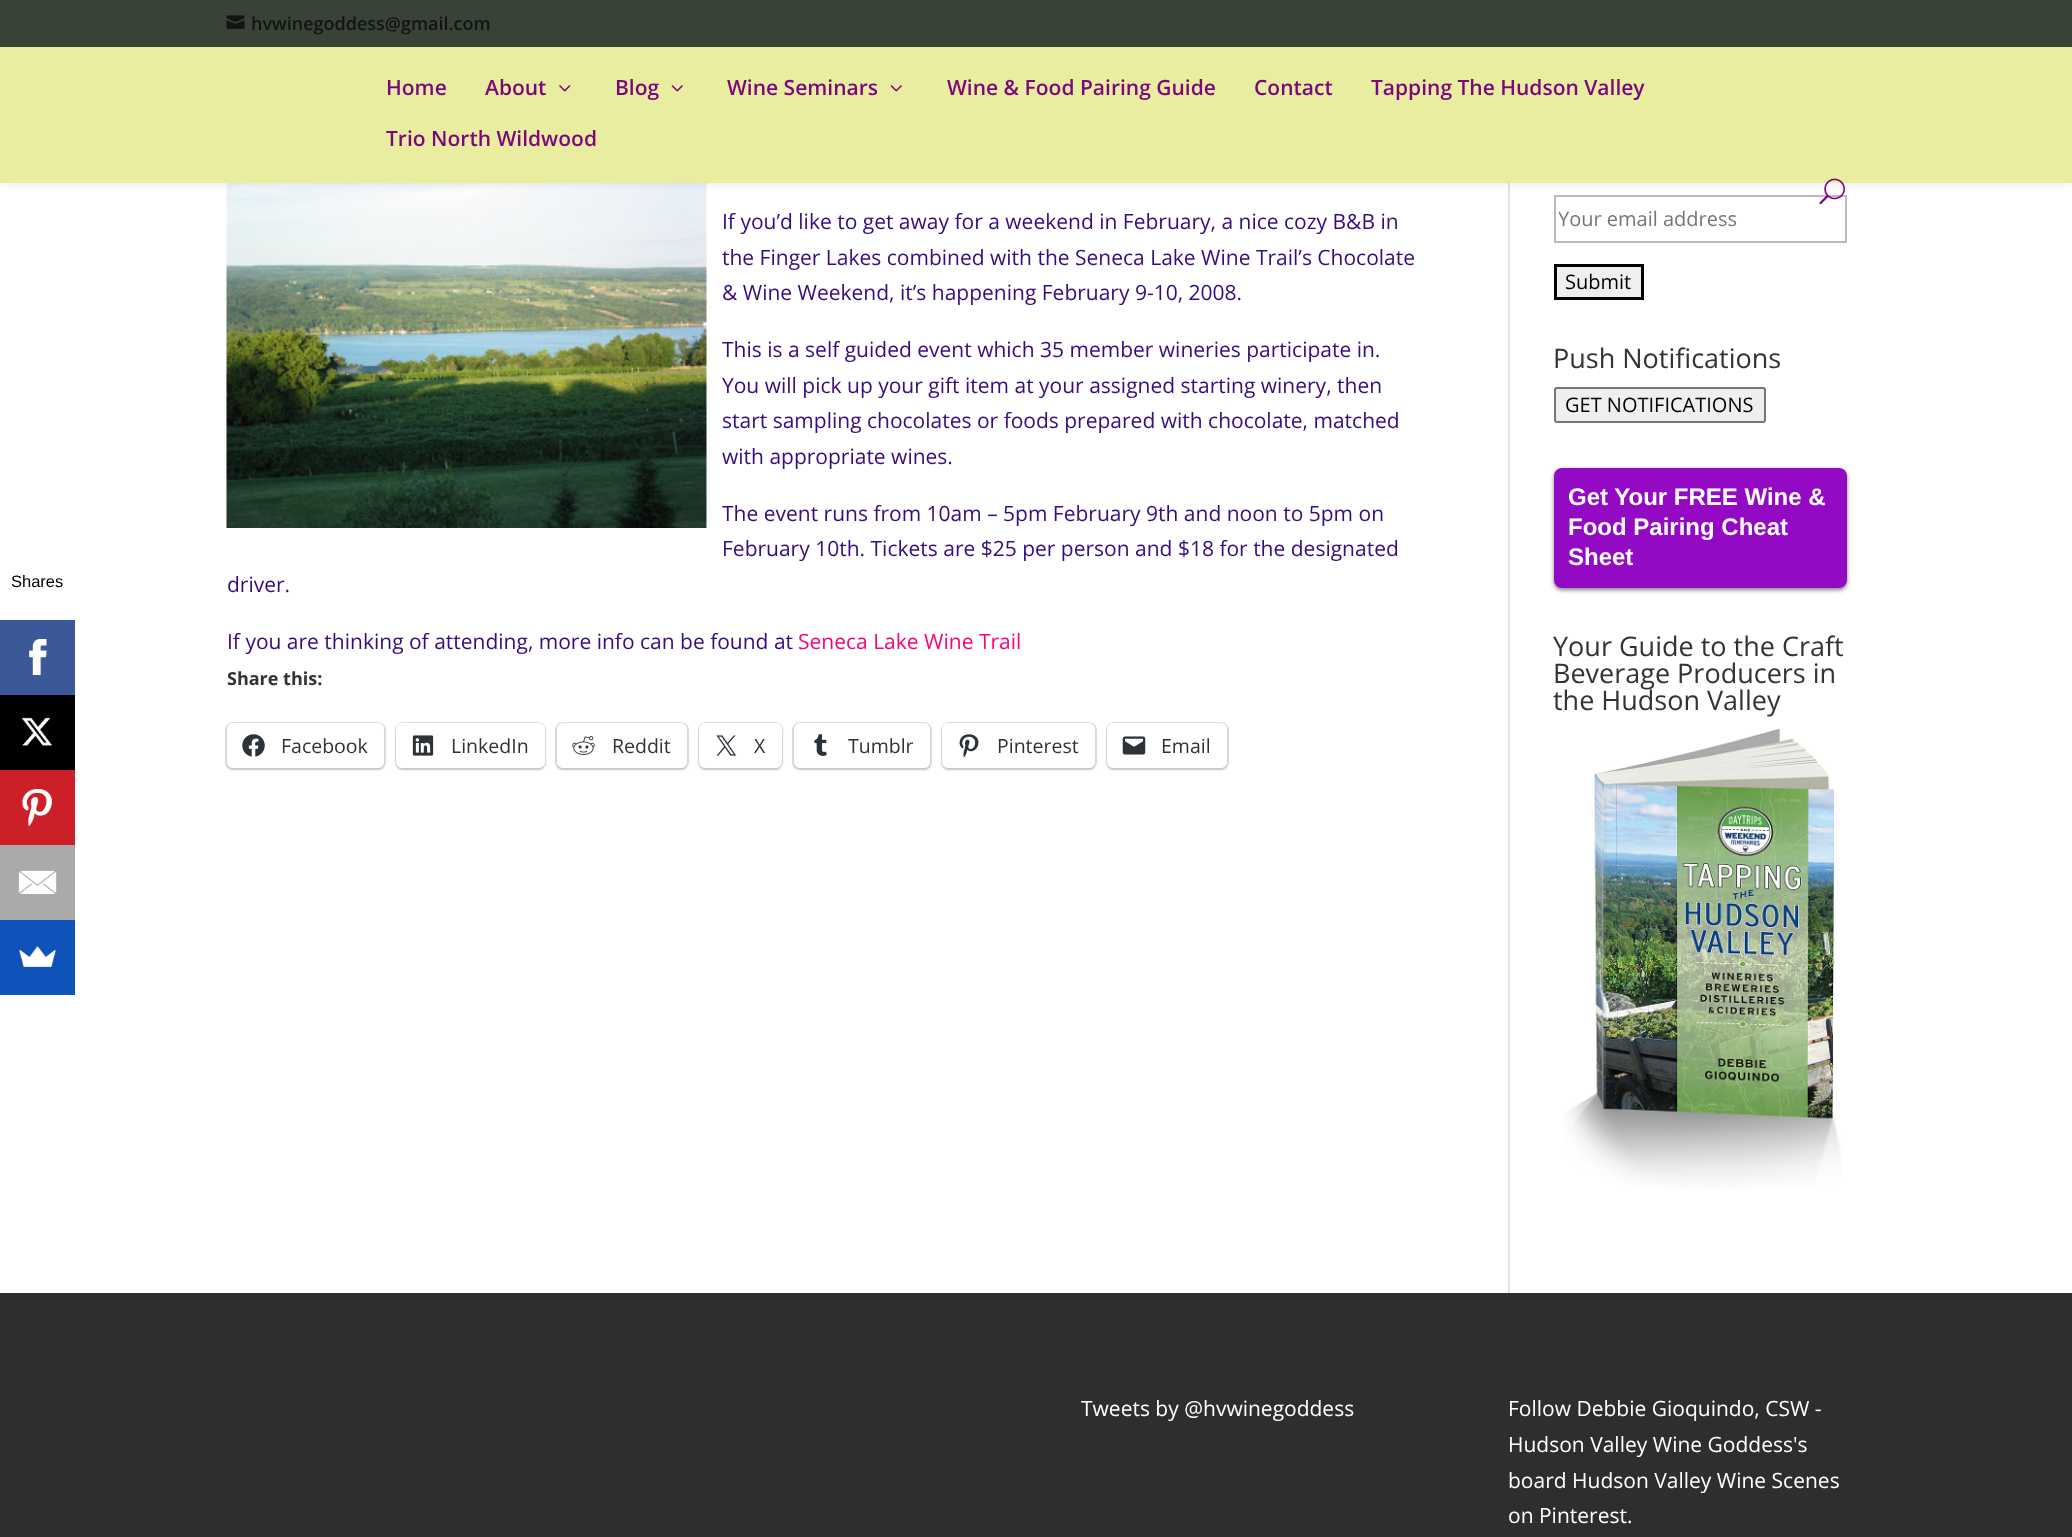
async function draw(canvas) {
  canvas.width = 2072
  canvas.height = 1537
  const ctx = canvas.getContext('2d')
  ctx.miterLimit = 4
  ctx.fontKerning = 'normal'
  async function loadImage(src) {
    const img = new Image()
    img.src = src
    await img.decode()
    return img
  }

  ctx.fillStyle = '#fff'
  ctx.fillRect(0, 0, 2072, 1537)
  ctx.font = '16.5px Liberation Sans'
  ctx.fillStyle = '#000'
  ctx.fillText('Shares', 11, 587)
  ctx.fillStyle = '#3b5998'
  ctx.fillRect(0, 620, 75, 75)
  ctx.drawImage(await loadImage('image0.png'), 29, 639, 18, 36)
  ctx.fillStyle = '#000'
  ctx.fillRect(0, 695, 75, 75)
  ctx.drawImage(await loadImage('image1.png'), 21, 717, 31, 29)
  ctx.fillStyle = '#cb2027'
  ctx.fillRect(0, 770, 75, 75)
  ctx.drawImage(await loadImage('image2.png'), 22, 789, 30, 37)
  ctx.fillStyle = '#aaa'
  ctx.fillRect(0, 845, 75, 75)
  ctx.drawImage(await loadImage('image3.png'), 18, 870, 39, 24)
  ctx.fillStyle = '#0f52ba'
  ctx.fillRect(0, 920, 75, 75)
  ctx.drawImage(await loadImage('image4.png'), 19, 946, 37, 21)
  ctx.fillStyle = '#e2e2e2'
  ctx.fillRect(1508, 183, 2, 1110)
  ctx.drawImage(await loadImage('image9.png'), 226, 183, 481, 345)
  ctx.strokeStyle = '#bbb'
  ctx.lineWidth = 2
  ctx.strokeRect(1555, 196, 291, 46)
  ctx.fillStyle = '#0000001a'
  ctx.filter = 'blur(5px)'
  ctx.beginPath()
  ctx.rect(0, 47, 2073, 136)
  ctx.fill()
  ctx.filter = 'none'
  ctx.fillStyle = '#384237'
  ctx.fillRect(0, 0, 2072, 47)
  ctx.drawImage(await loadImage('image5.png'), 226, 15, 19, 14)
  ctx.font = '600 18px Open Sans'
  ctx.fillStyle = '#111411'
  ctx.fillText('hvwinegoddess@gmail.com', 251, 30)
  ctx.fillStyle = '#e9ed9f'
  ctx.fillRect(0, 47, 2072, 136)
  ctx.font = '600 21px Open Sans'
  ctx.fillStyle = '#7d057f'
  ctx.fillText('Home', 386, 95)
  ctx.fillText('About', 485, 95)
  ctx.drawImage(await loadImage('image6.png'), 559, 85, 12, 7)
  ctx.fillText('Blog', 615, 95)
  ctx.drawImage(await loadImage('image7.png'), 671, 85, 12, 7)
  ctx.fillText('Wine Seminars', 727, 95)
  ctx.drawImage(await loadImage('image7.png'), 890, 85, 12, 7)
  ctx.fillText('Wine & Food Pairing Guide', 947, 95)
  ctx.fillText('Contact', 1254, 95)
  ctx.fillText('Tapping The Hudson Valley', 1371, 95)
  ctx.fillText('Trio North Wildwood', 386, 146)
  ctx.drawImage(await loadImage('image8.png'), 1819, 178, 26, 27)
  ctx.font = '21px Open Sans'
  ctx.fillStyle = '#380c7f'
  ctx.fillText('If you’d like to get away for a weekend in February, a nice cozy B&B in', 722, 229)
  ctx.fillText('the Finger Lakes combined with the Seneca Lake Wine Trail’s Chocolate', 722, 265)
  ctx.fillText('& Wine Weekend, it’s happening February 9-10, 2008.', 722, 300)
  ctx.fillText('This is a self guided event which 35 member wineries participate in.', 722, 357)
  ctx.fillText('You will pick up your gift item at your assigned starting winery, then', 722, 393)
  ctx.fillText('start sampling chocolates or foods prepared with chocolate, matched', 722, 428)
  ctx.fillText('with appropriate wines.', 722, 464)
  ctx.fillText('The event runs from 10am – 5pm February 9th and noon to 5pm on', 722, 521)
  ctx.fillText('February 10th. Tickets are $25 per person and $18 for the designated', 722, 556)
  ctx.fillText('driver.', 227, 592)
  ctx.fillText('If you are thinking of attending, more info can be found at', 227, 649)
  ctx.fillStyle = '#f7047a'
  ctx.fillText('Seneca Lake Wine Trail', 798, 649)
  ctx.font = 'bold 18px Open Sans'
  ctx.fillStyle = '#333'
  ctx.fillText('Share this:', 227, 685)
  ctx.beginPath()
  ctx.roundRect(226, 723, 159, 46, 7)
  ctx.strokeStyle = '#e0e0e0'
  ctx.stroke()
  ctx.fillStyle = '#0000001f'
  ctx.filter = 'blur(1.5px)'
  ctx.beginPath()
  ctx.roundRect(227, 725, 157, 45, 6)
  ctx.fill()
  ctx.filter = 'none'
  ctx.fillStyle = '#fff'
  ctx.beginPath()
  ctx.roundRect(227, 723, 157, 45, 6)
  ctx.fill()
  ctx.drawImage(await loadImage('image10.png'), 242, 734, 23, 23)
  ctx.font = '19.5px Open Sans'
  ctx.fillStyle = '#2c3338'
  ctx.fillText('Facebook', 281, 753)
  ctx.beginPath()
  ctx.roundRect(396, 723, 149, 46, 7)
  ctx.stroke()
  ctx.fillStyle = '#0000001f'
  ctx.filter = 'blur(1.5px)'
  ctx.beginPath()
  ctx.roundRect(396, 725, 149, 45, 6)
  ctx.fill()
  ctx.filter = 'none'
  ctx.fillStyle = '#fff'
  ctx.beginPath()
  ctx.roundRect(396, 723, 149, 45, 6)
  ctx.fill()
  ctx.drawImage(await loadImage('image11.png'), 412, 735, 22, 21)
  ctx.fillStyle = '#2c3338'
  ctx.fillText('LinkedIn', 451, 753)
  ctx.beginPath()
  ctx.roundRect(556, 723, 132, 46, 7)
  ctx.stroke()
  ctx.fillStyle = '#0000001f'
  ctx.filter = 'blur(1.5px)'
  ctx.beginPath()
  ctx.roundRect(557, 725, 130, 45, 6)
  ctx.fill()
  ctx.filter = 'none'
  ctx.fillStyle = '#fff'
  ctx.beginPath()
  ctx.roundRect(557, 723, 130, 45, 6)
  ctx.fill()
  ctx.drawImage(await loadImage('image12.png'), 572, 736, 23, 19)
  ctx.fillStyle = '#2c3338'
  ctx.fillText('Reddit', 612, 753)
  ctx.beginPath()
  ctx.roundRect(699, 723, 83, 46, 7)
  ctx.stroke()
  ctx.fillStyle = '#0000001f'
  ctx.filter = 'blur(1.5px)'
  ctx.beginPath()
  ctx.roundRect(699, 725, 83, 45, 6)
  ctx.fill()
  ctx.filter = 'none'
  ctx.fillStyle = '#fff'
  ctx.beginPath()
  ctx.roundRect(699, 723, 83, 45, 6)
  ctx.fill()
  ctx.drawImage(await loadImage('image13.png'), 716, 735, 21, 21)
  ctx.fillStyle = '#2c3338'
  ctx.fillText('X', 754, 753)
  ctx.beginPath()
  ctx.roundRect(793, 723, 138, 46, 7)
  ctx.stroke()
  ctx.fillStyle = '#0000001f'
  ctx.filter = 'blur(1.5px)'
  ctx.beginPath()
  ctx.roundRect(794, 725, 136, 45, 6)
  ctx.fill()
  ctx.filter = 'none'
  ctx.fillStyle = '#fff'
  ctx.beginPath()
  ctx.roundRect(794, 723, 136, 45, 6)
  ctx.fill()
  ctx.drawImage(await loadImage('image14.png'), 814, 734, 13, 22)
  ctx.fillStyle = '#2c3338'
  ctx.fillText('Tumblr', 848, 753)
  ctx.beginPath()
  ctx.roundRect(942, 723, 154, 46, 7)
  ctx.stroke()
  ctx.fillStyle = '#0000001f'
  ctx.filter = 'blur(1.5px)'
  ctx.beginPath()
  ctx.roundRect(942, 725, 153, 45, 6)
  ctx.fill()
  ctx.filter = 'none'
  ctx.fillStyle = '#fff'
  ctx.beginPath()
  ctx.roundRect(942, 723, 153, 45, 6)
  ctx.fill()
  ctx.drawImage(await loadImage('image15.png'), 959, 734, 20, 24)
  ctx.fillStyle = '#2c3338'
  ctx.fillText('Pinterest', 997, 753)
  ctx.beginPath()
  ctx.roundRect(1107, 723, 121, 46, 7)
  ctx.stroke()
  ctx.fillStyle = '#0000001f'
  ctx.filter = 'blur(1.5px)'
  ctx.beginPath()
  ctx.roundRect(1107, 725, 120, 45, 6)
  ctx.fill()
  ctx.filter = 'none'
  ctx.fillStyle = '#fff'
  ctx.beginPath()
  ctx.roundRect(1107, 723, 120, 45, 6)
  ctx.fill()
  ctx.drawImage(await loadImage('image16.png'), 1122, 736, 24, 19)
  ctx.fillStyle = '#2c3338'
  ctx.fillText('Email', 1161, 753)
  ctx.save()
  ctx.beginPath()
  ctx.rect(1559, 206, 283, 27)
  ctx.clip()
  ctx.font = '20px Open Sans'
  ctx.fillStyle = '#757575'
  ctx.fillText('Your email address', 1558, 226)
  ctx.restore()
  ctx.fillStyle = '#efefef'
  ctx.beginPath()
  ctx.rect(1555.5, 265.5, 87, 33)
  ctx.fill()
  ctx.strokeStyle = '#000'
  ctx.lineWidth = 3
  ctx.stroke()
  ctx.font = '20px Open Sans'
  ctx.fillStyle = '#000'
  ctx.fillText('Submit', 1565, 289)
  ctx.font = '27px Open Sans'
  ctx.fillStyle = '#333'
  ctx.fillText('Push Notifications', 1553, 368)
  ctx.fillStyle = '#efefef'
  ctx.beginPath()
  ctx.roundRect(1555, 388, 210, 34, 2)
  ctx.fill()
  ctx.strokeStyle = '#767676'
  ctx.lineWidth = 2
  ctx.stroke()
  ctx.font = '20px Open Sans'
  ctx.fillStyle = '#000'
  ctx.fillText('GET NOTIFICATIONS', 1565, 412)
  ctx.fillStyle = '#00000080'
  ctx.filter = 'blur(2px)'
  ctx.beginPath()
  ctx.roundRect(1554, 470, 293, 120, 8)
  ctx.fill()
  ctx.filter = 'none'
  ctx.fillStyle = '#940ac4'
  ctx.beginPath()
  ctx.roundRect(1554, 468, 293, 120, 8)
  ctx.fill()
  ctx.font = 'bold 24px Liberation Sans'
  ctx.fillStyle = '#fff'
  ctx.fillText('Get Your FREE Wine &', 1568, 505)
  ctx.fillText('Food Pairing Cheat', 1568, 535)
  ctx.fillText('Sheet', 1568, 565)
  ctx.font = '27px Open Sans'
  ctx.fillStyle = '#333'
  ctx.fillText('Your Guide to the Craft', 1553, 656)
  ctx.fillText('Beverage Producers in', 1553, 683)
  ctx.fillText('the Hudson Valley', 1553, 710)
  ctx.drawImage(await loadImage('image17.png'), 1563, 729, 279, 459)
  ctx.fillStyle = '#2e2e2e'
  ctx.fillRect(0, 1293, 2072, 244)
  ctx.font = '21px Open Sans'
  ctx.fillStyle = '#fff'
  ctx.fillText('Tweets by @hvwinegoddess', 1081, 1416)
  ctx.fillText('Follow Debbie Gioquindo, CSW -', 1508, 1416)
  ctx.fillText('Hudson Valley Wine Goddess\'s', 1508, 1452)
  ctx.fillText('board Hudson Valley Wine Scenes', 1508, 1488)
  ctx.fillText('on Pinterest.', 1508, 1523)
}

draw(document.querySelector('canvas'))
